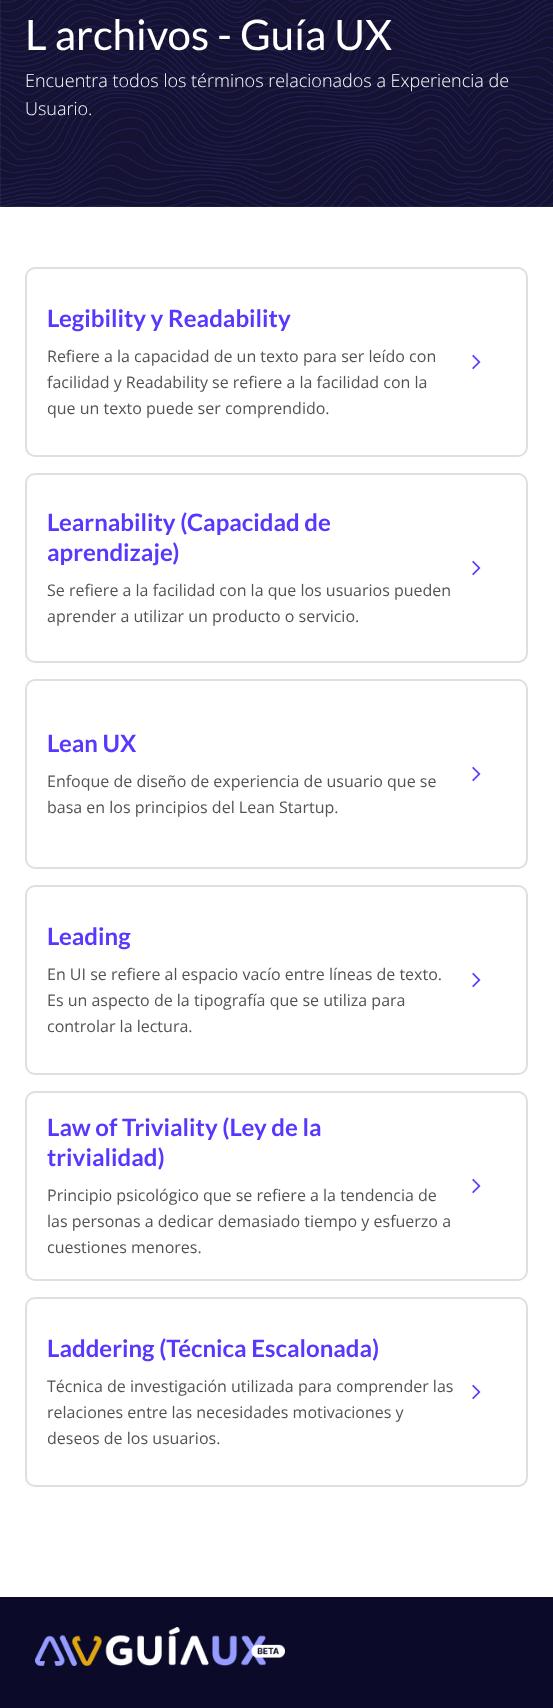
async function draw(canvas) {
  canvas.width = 553
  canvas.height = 1708
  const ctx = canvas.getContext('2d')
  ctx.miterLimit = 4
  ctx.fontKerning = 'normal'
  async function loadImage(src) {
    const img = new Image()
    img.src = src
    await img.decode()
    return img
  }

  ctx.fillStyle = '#0b0a29'
  ctx.fillRect(0, 0, 553, 1708)
  ctx.drawImage(await loadImage('image0.png'), 0, 0, 553, 207)
  ctx.font = '42px Lato'
  ctx.fillStyle = '#fff'
  ctx.fillText('L archivos - Guía UX', 25, 50)
  ctx.font = '300 18px Open Sans'
  ctx.fillText('Encuentra todos los términos relacionados a Experiencia de', 25, 87)
  ctx.fillText('Usuario.', 25, 115)
  ctx.fillRect(0, 207, 553, 1390)
  ctx.beginPath()
  ctx.roundRect(26, 268, 501, 188, 9)
  ctx.strokeStyle = '#dfdfdf'
  ctx.lineWidth = 2
  ctx.stroke()
  ctx.font = 'bold 24px Lato'
  ctx.fillStyle = '#5938fe'
  ctx.fillText('Legibility y Readability', 47, 327)
  ctx.font = '16px Open Sans'
  ctx.fillStyle = '#535353'
  ctx.fillText('Refiere a la capacidad de un texto para ser leído con', 47, 362)
  ctx.fillText('facilidad y Readability se refiere a la facilidad con la', 47, 388)
  ctx.fillText('que un texto puede ser comprendido.', 47, 414)
  ctx.drawImage(await loadImage('image1.png'), 472, 354, 9, 16)
  ctx.beginPath()
  ctx.roundRect(26, 474, 501, 188, 9)
  ctx.stroke()
  ctx.font = 'bold 24px Lato'
  ctx.fillStyle = '#5938fe'
  ctx.fillText('Learnability (Capacidad de', 47, 531)
  ctx.fillText('aprendizaje)', 47, 561)
  ctx.drawImage(await loadImage('image1.png'), 472, 560, 9, 16)
  ctx.font = '16px Open Sans'
  ctx.fillStyle = '#535353'
  ctx.fillText('Se refiere a la facilidad con la que los usuarios pueden', 47, 596)
  ctx.fillText('aprender a utilizar un producto o servicio.', 47, 622)
  ctx.beginPath()
  ctx.roundRect(26, 680, 501, 188, 9)
  ctx.stroke()
  ctx.font = 'bold 24px Lato'
  ctx.fillStyle = '#5938fe'
  ctx.fillText('Lean UX', 47, 752)
  ctx.font = '16px Open Sans'
  ctx.fillStyle = '#535353'
  ctx.fillText('Enfoque de diseño de experiencia de usuario que se', 47, 787)
  ctx.fillText('basa en los principios del Lean Startup.', 47, 813)
  ctx.drawImage(await loadImage('image1.png'), 472, 766, 9, 16)
  ctx.beginPath()
  ctx.roundRect(26, 886, 501, 188, 9)
  ctx.stroke()
  ctx.font = 'bold 24px Lato'
  ctx.fillStyle = '#5938fe'
  ctx.fillText('Leading', 47, 945)
  ctx.font = '16px Open Sans'
  ctx.fillStyle = '#535353'
  ctx.fillText('En UI se refiere al espacio vacío entre líneas de texto.', 47, 980)
  ctx.fillText('Es un aspecto de la tipografía que se utiliza para', 47, 1006)
  ctx.fillText('controlar la lectura.', 47, 1032)
  ctx.drawImage(await loadImage('image1.png'), 472, 972, 9, 16)
  ctx.beginPath()
  ctx.roundRect(26, 1092, 501, 188, 9)
  ctx.stroke()
  ctx.font = 'bold 24px Lato'
  ctx.fillStyle = '#5938fe'
  ctx.fillText('Law of Triviality (Ley de la', 47, 1136)
  ctx.fillText('trivialidad)', 47, 1166)
  ctx.drawImage(await loadImage('image1.png'), 472, 1178, 9, 16)
  ctx.font = '16px Open Sans'
  ctx.fillStyle = '#535353'
  ctx.fillText('Principio psicológico que se refiere a la tendencia de', 47, 1201)
  ctx.fillText('las personas a dedicar demasiado tiempo y esfuerzo a', 47, 1227)
  ctx.fillText('cuestiones menores.', 47, 1253)
  ctx.beginPath()
  ctx.roundRect(26, 1298, 501, 188, 9)
  ctx.stroke()
  ctx.font = 'bold 24px Lato'
  ctx.fillStyle = '#5938fe'
  ctx.fillText('Laddering (Técnica Escalonada)', 47, 1357)
  ctx.font = '16px Open Sans'
  ctx.fillStyle = '#535353'
  ctx.fillText('Técnica de investigación utilizada para comprender las', 47, 1392)
  ctx.fillText('relaciones entre las necesidades motivaciones y', 47, 1418)
  ctx.fillText('deseos de los usuarios.', 47, 1444)
  ctx.drawImage(await loadImage('image1.png'), 472, 1384, 9, 16)
  ctx.drawImage(await loadImage('image2.png'), 35, 1627, 250, 39)
}

draw(document.querySelector('canvas'))
